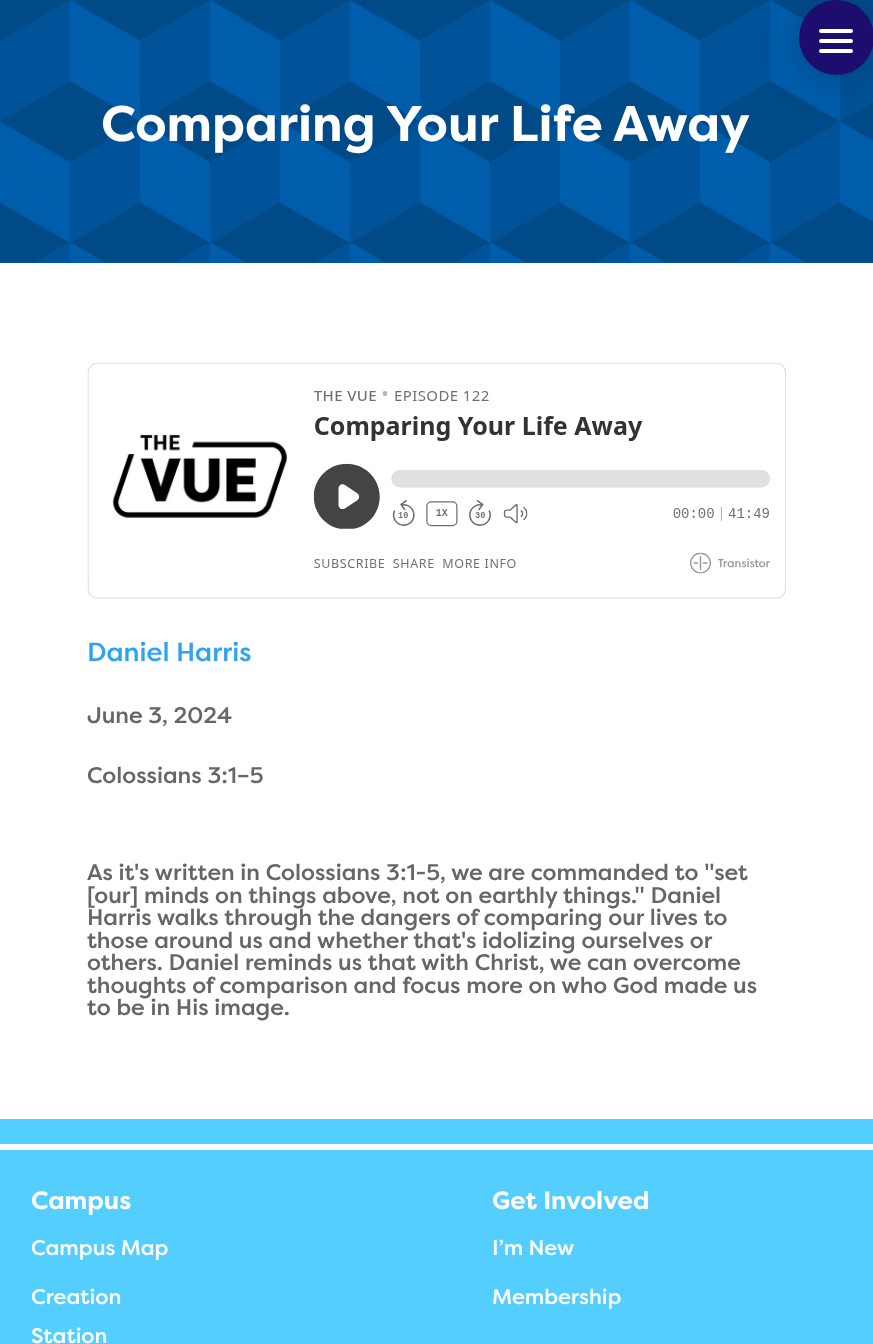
async function draw(canvas) {
  canvas.width = 873
  canvas.height = 1344
  const ctx = canvas.getContext('2d')
  ctx.miterLimit = 4
  ctx.fontKerning = 'normal'
  async function loadImage(src) {
    const img = new Image()
    img.src = src
    await img.decode()
    return img
  }

  ctx.fillStyle = '#fff'
  ctx.fillRect(0, 0, 873, 1344)
  ctx.fillStyle = '#005dab'
  ctx.fillRect(0, 0, 873, 263)
  ctx.drawImage(await loadImage('image0.png'), 0, 0, 873, 263)
  ctx.fillStyle = '#00000033'
  ctx.filter = 'blur(19px)'
  ctx.beginPath()
  ctx.roundRect(799, 8, 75, 75, 37.5)
  ctx.fill()
  ctx.filter = 'none'
  ctx.fillStyle = '#1d0d6f'
  ctx.beginPath()
  ctx.arc(836.5, 37.5, 37.5, 0, 2 * Math.PI)
  ctx.fill()
  ctx.fillStyle = '#fff'
  ctx.beginPath()
  ctx.roundRect(819, 39, 34, 4, 2)
  ctx.fill()
  ctx.beginPath()
  ctx.roundRect(819, 29, 34, 4, 2)
  ctx.fill()
  ctx.beginPath()
  ctx.roundRect(819, 49, 34, 4, 2)
  ctx.fill()
  ctx.font = 'bold 50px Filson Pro'
  ctx.fillText('Comparing Your Life Away', 101, 141)
  ctx.drawImage(await loadImage('image1.png'), 87, 362, 699, 237)
  ctx.font = '500 26.25px Filson Pro'
  ctx.fillStyle = '#2ea3f2'
  ctx.fillText('Daniel Harris', 87, 661)
  ctx.font = '500 22.5px Filson Pro'
  ctx.fillStyle = '#666'
  ctx.fillText('June 3, 2024', 87, 723)
  ctx.fillText('Colossians 3:1–5', 87, 783)
  ctx.fillText('As it\'s written in Colossians 3:1-5, we are commanded to "set', 87, 880)
  ctx.fillText('[our] minds on things above, not on earthly things." Daniel', 87, 903)
  ctx.fillText('Harris walks through the dangers of comparing our lives to', 87, 925)
  ctx.fillText('those around us and whether that\'s idolizing ourselves or', 87, 948)
  ctx.fillText('others. Daniel reminds us that with Christ, we can overcome', 87, 970)
  ctx.fillText('thoughts of comparison and focus more on who God made us', 87, 993)
  ctx.fillText('to be in His image.', 87, 1015)
  ctx.fillStyle = '#54ceff'
  ctx.fillRect(0, 1119, 873, 225)
  ctx.fillStyle = '#fff'
  ctx.fillRect(0, 1144, 873, 6)
  ctx.font = 'bold 25px Filson Pro'
  ctx.fillText('Campus', 31, 1209)
  ctx.font = '500 21.25px Filson Pro'
  ctx.fillText('Campus Map', 31, 1255)
  ctx.fillText('Creation', 31, 1304)
  ctx.fillText('Station', 31, 1343)
  ctx.font = 'bold 25px Filson Pro'
  ctx.fillText('Get Involved', 492, 1209)
  ctx.font = '500 21.25px Filson Pro'
  ctx.fillText('I’m New', 492, 1255)
  ctx.fillText('Membership', 492, 1304)
}

draw(document.querySelector('canvas'))
